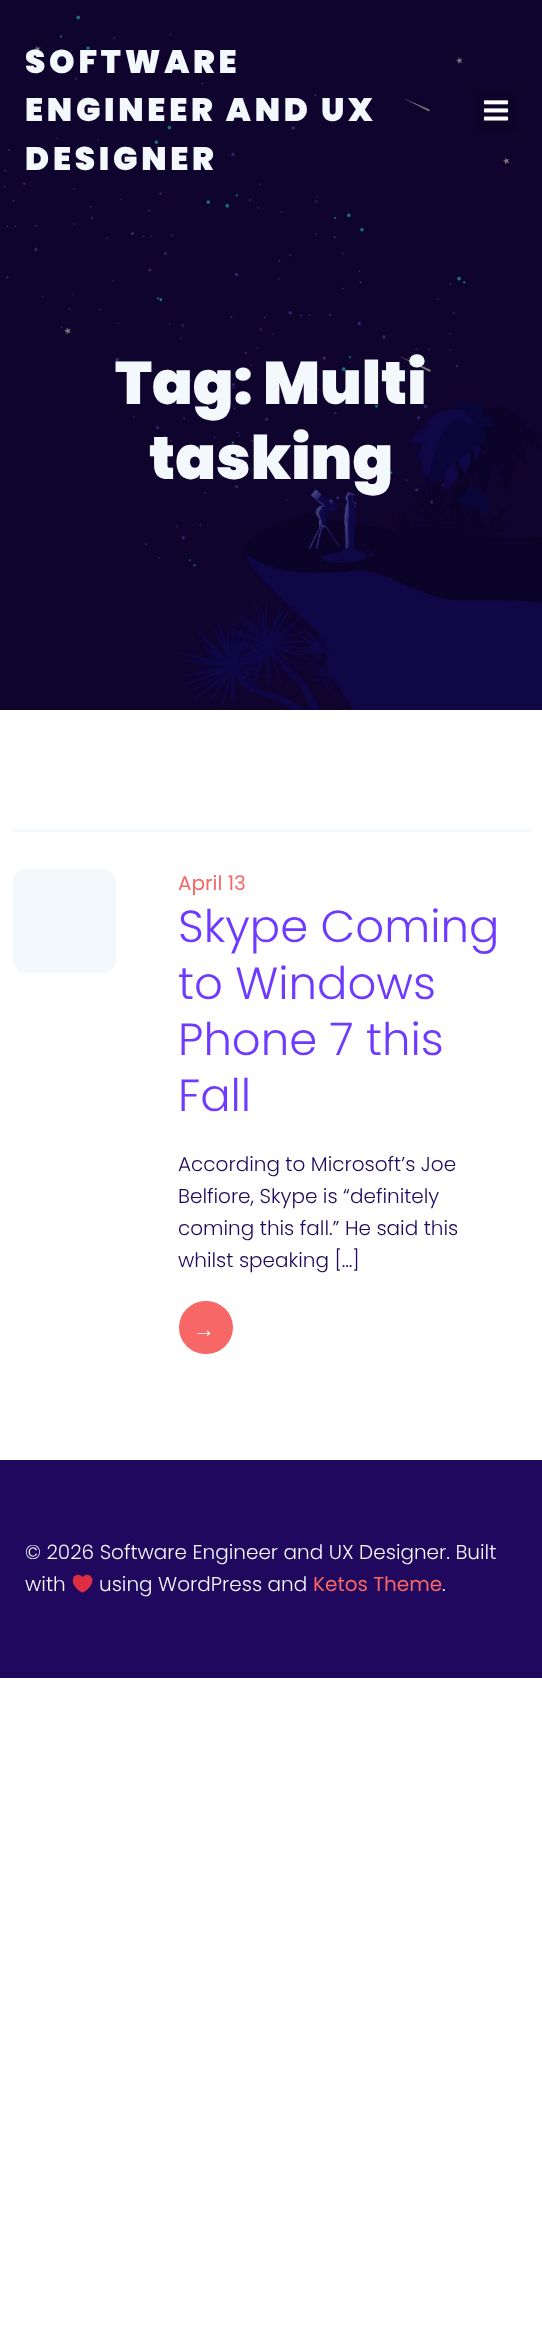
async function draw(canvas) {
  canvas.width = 542
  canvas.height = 2337
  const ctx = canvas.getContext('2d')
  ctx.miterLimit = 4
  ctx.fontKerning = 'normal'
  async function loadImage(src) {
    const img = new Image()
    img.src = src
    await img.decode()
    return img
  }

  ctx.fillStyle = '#fff'
  ctx.fillRect(0, 0, 542, 2337)
  ctx.drawImage(await loadImage('image1.png'), 0, 0, 542, 710)
  ctx.letterSpacing = '3.75px'
  ctx.font = '900 32.5px Poppins'
  ctx.fillStyle = '#f3f8fc'
  ctx.fillText('SOFTWARE', 25, 73)
  ctx.fillText('ENGINEER AND UX', 25, 121)
  ctx.fillText('DESIGNER', 25, 170)
  ctx.fillStyle = '#0e0429'
  ctx.fillRect(475, 90, 43, 43)
  ctx.drawImage(await loadImage('image0.png'), 484, 100, 25, 21)
  ctx.letterSpacing = '0px'
  ctx.font = '900 60px Poppins'
  ctx.fillStyle = '#f3f8fc'
  ctx.fillText('Tag: Multi', 115, 404)
  ctx.fillText('tasking', 149, 479)
  ctx.fillRect(13, 829, 517, 3)
  ctx.beginPath()
  ctx.roundRect(13, 869, 103, 104, 13)
  ctx.fill()
  ctx.font = '20px Poppins'
  ctx.fillStyle = '#f66766'
  ctx.fillText('April 13', 178, 890)
  ctx.font = '300 45px Poppins'
  ctx.fillStyle = '#6f3aff'
  ctx.fillText('Skype Coming', 178, 942)
  ctx.fillText('to Windows', 178, 999)
  ctx.fillText('Phone 7 this', 178, 1055)
  ctx.fillText('Fall', 178, 1111)
  ctx.font = '300 20px Poppins'
  ctx.fillStyle = '#20085e'
  ctx.fillText('According to Microsoft’s Joe', 178, 1171)
  ctx.fillText('Belfiore, Skype is “definitely', 178, 1203)
  ctx.fillText('coming this fall.” He said this', 178, 1235)
  ctx.fillText('whilst speaking […]', 178, 1267)
  ctx.fillStyle = '#f66766'
  ctx.beginPath()
  ctx.roundRect(179, 1301, 54, 53, 26.5)
  ctx.fill()
  ctx.letterSpacing = '1px'
  ctx.font = 'bold 22px Liberation Sans'
  ctx.fillStyle = '#fff'
  ctx.fillText('→', 193, 1337)
  ctx.fillStyle = '#20085e'
  ctx.fillRect(0, 1460, 542, 218)
  ctx.letterSpacing = '0px'
  ctx.font = '300 20px Poppins'
  ctx.fillStyle = '#f3f8fc'
  ctx.fillText('© 2026 Software Engineer and UX Designer. Built', 25, 1559)
  ctx.fillText('with', 25, 1591)
  ctx.drawImage(await loadImage('image2.png'), 73, 1574, 20, 19)
  ctx.fillText('using WordPress and', 99, 1591)
  ctx.font = '20px Poppins'
  ctx.fillStyle = '#f66766'
  ctx.fillText('Ketos Theme', 313, 1591)
  ctx.font = '300 20px Poppins'
  ctx.fillStyle = '#f3f8fc'
  ctx.fillText('.', 442, 1591)
}

draw(document.querySelector('canvas'))
